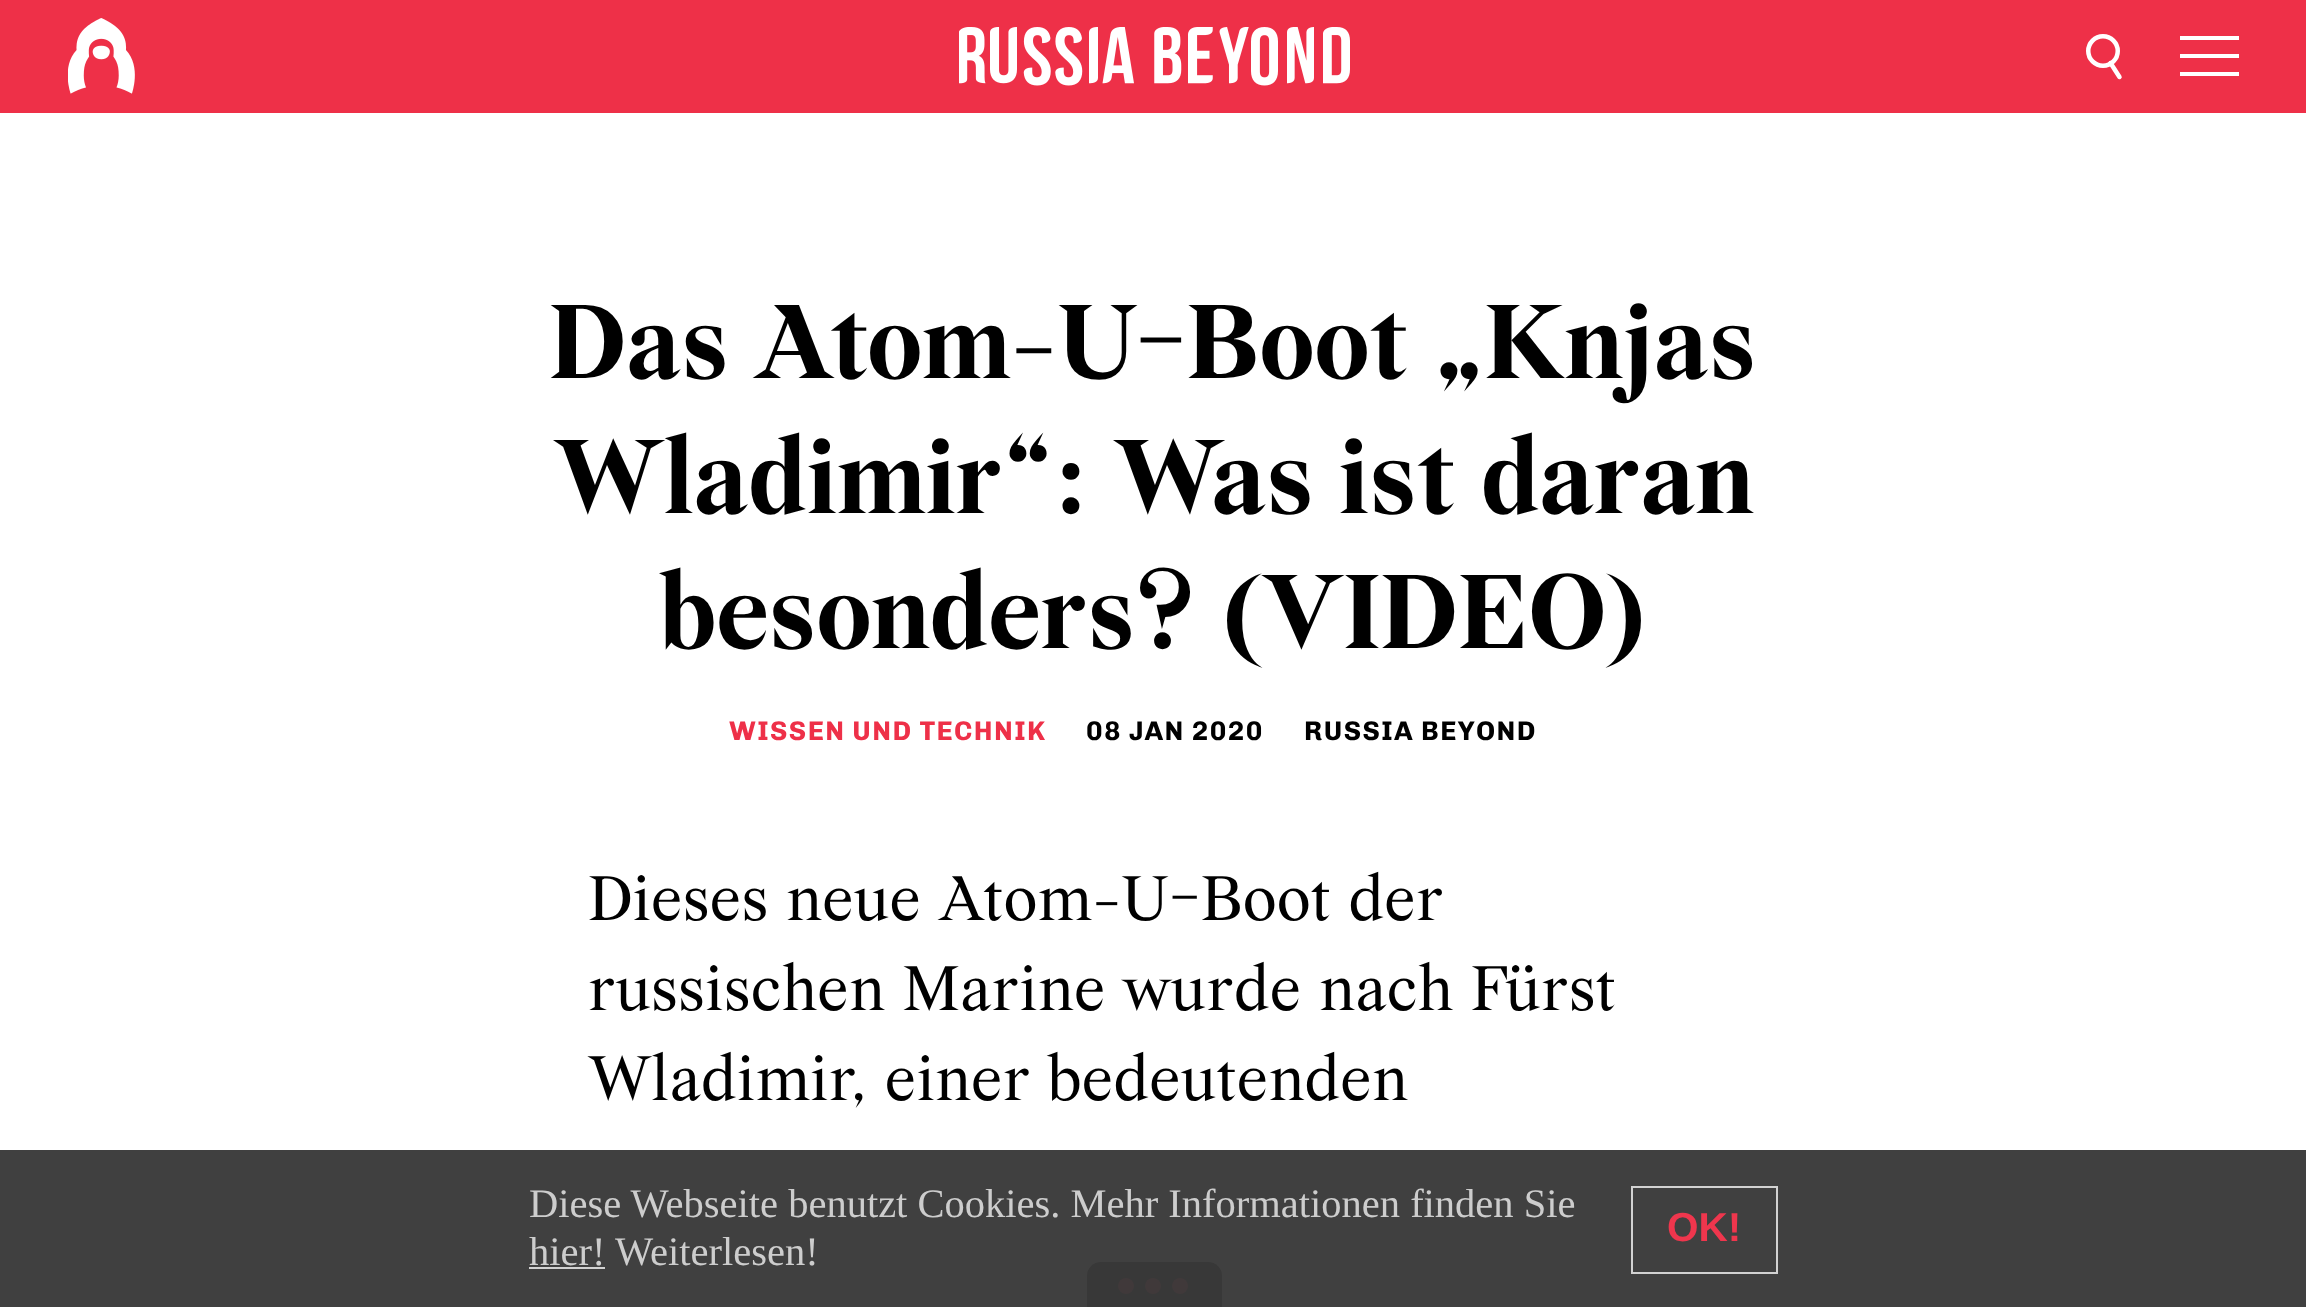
async function draw(canvas) {
  canvas.width = 2306
  canvas.height = 1307
  const ctx = canvas.getContext('2d')
  ctx.miterLimit = 4
  ctx.fontKerning = 'normal'
  async function loadImage(src) {
    const img = new Image()
    img.src = src
    await img.decode()
    return img
  }

  ctx.fillStyle = '#fff'
  ctx.fillRect(0, 0, 2306, 1307)
  ctx.fillStyle = '#ee3048'
  ctx.fillRect(0, 0, 2306, 113)
  ctx.drawImage(await loadImage('image0.png'), 68, 18, 67, 76)
  ctx.drawImage(await loadImage('image1.png'), 959, 27, 391, 59)
  ctx.beginPath()
  ctx.arc(2103, 51, 14.75, 0, 2 * Math.PI)
  ctx.strokeStyle = '#fff'
  ctx.lineWidth = 4.5
  ctx.stroke()
  ctx.beginPath()
  ctx.moveTo(2110.5, 63)
  ctx.lineTo(2119.5, 77)
  ctx.lineCap = 'round'
  ctx.stroke()
  ctx.fillStyle = '#fff'
  ctx.beginPath()
  ctx.moveTo(2180, 36)
  ctx.lineTo(2239, 36)
  ctx.lineTo(2239, 40)
  ctx.lineTo(2180, 40)
  ctx.closePath()
  ctx.moveTo(2180, 54)
  ctx.lineTo(2239, 54)
  ctx.lineTo(2239, 58)
  ctx.lineTo(2180, 58)
  ctx.closePath()
  ctx.moveTo(2180, 72)
  ctx.lineTo(2239, 72)
  ctx.lineTo(2239, 76)
  ctx.lineTo(2180, 76)
  ctx.closePath()
  ctx.fill('evenodd')
  ctx.font = 'bold 112.5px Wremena'
  ctx.fillStyle = '#000'
  ctx.fillText('Das Atom-U-Boot „Knjas', 549, 378)
  ctx.fillText('Wladimir“: Was ist daran', 553, 513)
  ctx.fillText('besonders? (VIDEO)', 659, 648)
  ctx.letterSpacing = '1.4px'
  ctx.font = 'bold 27px Chivo'
  ctx.fillStyle = '#ee3048'
  ctx.fillText('WISSEN UND TECHNIK', 729, 740)
  ctx.fillStyle = '#000'
  ctx.fillText('08 JAN 2020', 1086, 740)
  ctx.fillText('RUSSIA BEYOND', 1304, 740)
  ctx.letterSpacing = '0px'
  ctx.font = '67.5px Wremena'
  ctx.fillText('Dieses neue Atom-U-Boot der', 588, 920)
  ctx.fillText('russischen Marine wurde nach Fürst', 588, 1010)
  ctx.fillText('Wladimir, einer bedeutenden', 588, 1100)
  ctx.beginPath()
  ctx.roundRect(1087, 1262, 135, 45, [14, 14, 0, 0])
  ctx.fill()
  ctx.fillStyle = '#ee3048'
  ctx.beginPath()
  ctx.arc(1126, 1286, 8, 0, 2 * Math.PI)
  ctx.fill()
  ctx.beginPath()
  ctx.arc(1153, 1286, 8, 0, 2 * Math.PI)
  ctx.fill()
  ctx.beginPath()
  ctx.arc(1180, 1286, 8, 0, 2 * Math.PI)
  ctx.fill()
  ctx.fillStyle = '#3a3a3af7'
  ctx.fillRect(0, 1150, 2306, 157)
  ctx.font = '40.5px Liberation Serif'
  ctx.fillStyle = '#cdcdcd'
  ctx.fillText('Diese Webseite benutzt Cookies. Mehr Informationen finden Sie', 529, 1217)
  ctx.fillText('hier!', 529, 1265)
  ctx.fillStyle = '#d2d2d2'
  ctx.fillRect(529, 1267, 76, 2)
  ctx.fillStyle = '#cdcdcd'
  ctx.fillText('Weiterlesen!', 615, 1265)
  ctx.strokeStyle = '#d2d2d2'
  ctx.lineWidth = 2
  ctx.strokeRect(1632, 1187, 145, 86)
  ctx.font = 'bold 40.5px Liberation Sans'
  ctx.fillStyle = '#ef364d'
  ctx.fillText('OK!', 1667, 1241)
}

draw(document.querySelector('canvas'))
